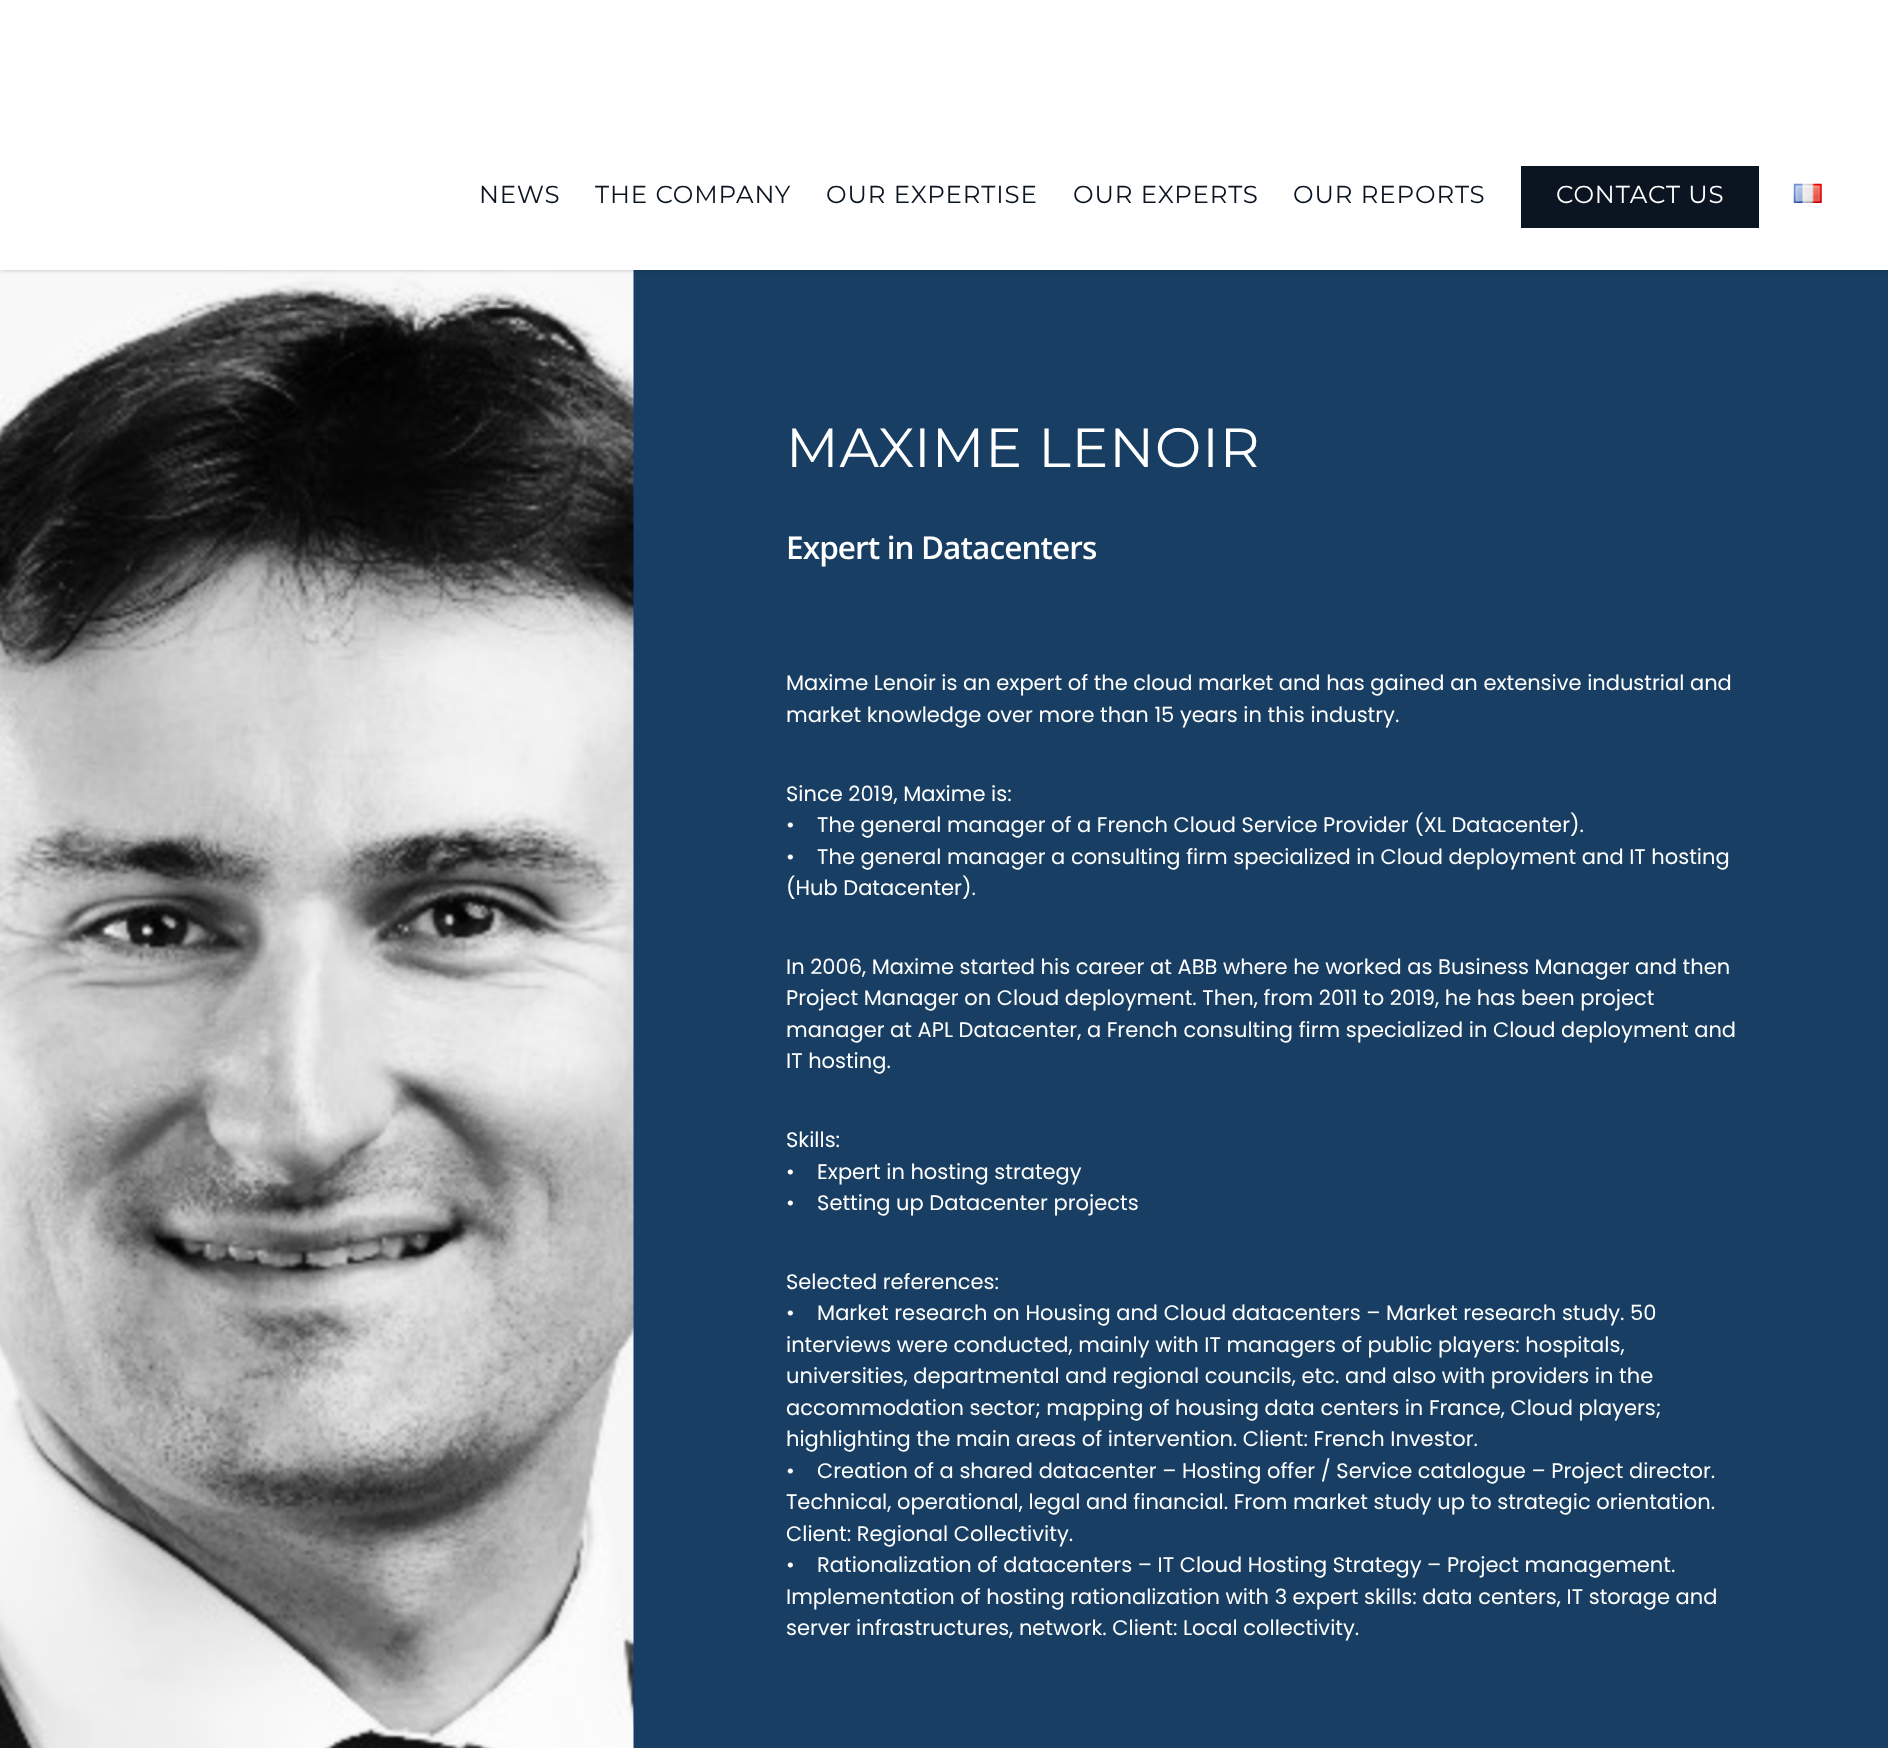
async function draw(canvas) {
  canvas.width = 1888
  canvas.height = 1748
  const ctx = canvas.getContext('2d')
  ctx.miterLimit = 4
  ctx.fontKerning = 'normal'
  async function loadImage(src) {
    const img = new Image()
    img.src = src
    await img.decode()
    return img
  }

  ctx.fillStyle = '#183f63'
  ctx.fillRect(0, 0, 1888, 1748)
  ctx.drawImage(await loadImage('image1.png'), 0, 270, 634, 1478)
  ctx.fillStyle = '#00000038'
  ctx.filter = 'blur(2.5px)'
  ctx.beginPath()
  ctx.rect(0, 0, 1888, 270)
  ctx.fill()
  ctx.filter = 'none'
  ctx.fillStyle = '#fff'
  ctx.fillRect(0, 0, 1888, 270)
  ctx.letterSpacing = '0.9px'
  ctx.font = '100 24.5px Montserrat'
  ctx.fillStyle = '#0b1421'
  ctx.fillText('NEWS', 479, 203)
  ctx.fillText('THE COMPANY', 595, 203)
  ctx.fillText('OUR EXPERTISE', 826, 203)
  ctx.fillText('OUR EXPERTS', 1073, 203)
  ctx.fillText('OUR REPORTS', 1293, 203)
  ctx.fillRect(1521, 166, 238, 62)
  ctx.fillStyle = '#fff'
  ctx.fillText('CONTACT US', 1556, 203)
  ctx.drawImage(await loadImage('image0.png'), 1793, 183, 29, 20)
  ctx.font = '100 55.1px Montserrat'
  ctx.fillText('MAXIME LENOIR', 786, 467)
  ctx.letterSpacing = '-0.9px'
  ctx.font = '600 31.5px Open Sans'
  ctx.fillText('Expert in Datacenters', 786, 559)
  ctx.letterSpacing = '0px'
  ctx.font = '21px Poppins'
  ctx.fillText('Maxime Lenoir is an expert of the cloud market and has gained an extensive industrial and', 786, 690)
  ctx.fillText('market knowledge over more than 15 years in this industry.', 786, 722)
  ctx.fillText('Since 2019, Maxime is:', 786, 801)
  ctx.fillText('•    The general manager of a French Cloud Service Provider (XL Datacenter).', 786, 832)
  ctx.fillText('•    The general manager a consulting firm specialized in Cloud deployment and IT hosting', 786, 864)
  ctx.fillText('(Hub Datacenter).', 786, 895)
  ctx.fillText('In 2006, Maxime started his career at ABB where he worked as Business Manager and then', 786, 974)
  ctx.fillText('Project Manager on Cloud deployment. Then, from 2011 to 2019, he has been project', 786, 1005)
  ctx.fillText('manager at APL Datacenter, a French consulting firm specialized in Cloud deployment and', 786, 1037)
  ctx.fillText('IT hosting.', 786, 1068)
  ctx.fillText('Skills:', 786, 1147)
  ctx.fillText('•    Expert in hosting strategy', 786, 1179)
  ctx.fillText('•    Setting up Datacenter projects', 786, 1210)
  ctx.fillText('Selected references:', 786, 1289)
  ctx.fillText('•    Market research on Housing and Cloud datacenters – Market research study. 50', 786, 1320)
  ctx.fillText('interviews were conducted, mainly with IT managers of public players: hospitals,', 786, 1352)
  ctx.fillText('universities, departmental and regional councils, etc. and also with providers in the', 786, 1383)
  ctx.fillText('accommodation sector; mapping of housing data centers in France, Cloud players;', 786, 1415)
  ctx.fillText('highlighting the main areas of intervention. Client: French Investor.', 786, 1446)
  ctx.fillText('•    Creation of a shared datacenter – Hosting offer / Service catalogue – Project director.', 786, 1478)
  ctx.fillText('Technical, operational, legal and financial. From market study up to strategic orientation.', 786, 1509)
  ctx.fillText('Client: Regional Collectivity.', 786, 1541)
  ctx.fillText('•    Rationalization of datacenters – IT Cloud Hosting Strategy – Project management.', 786, 1572)
  ctx.fillText('Implementation of hosting rationalization with 3 expert skills: data centers, IT storage and', 786, 1604)
  ctx.fillText('server infrastructures, network. Client: Local collectivity.', 786, 1635)
}

draw(document.querySelector('canvas'))
